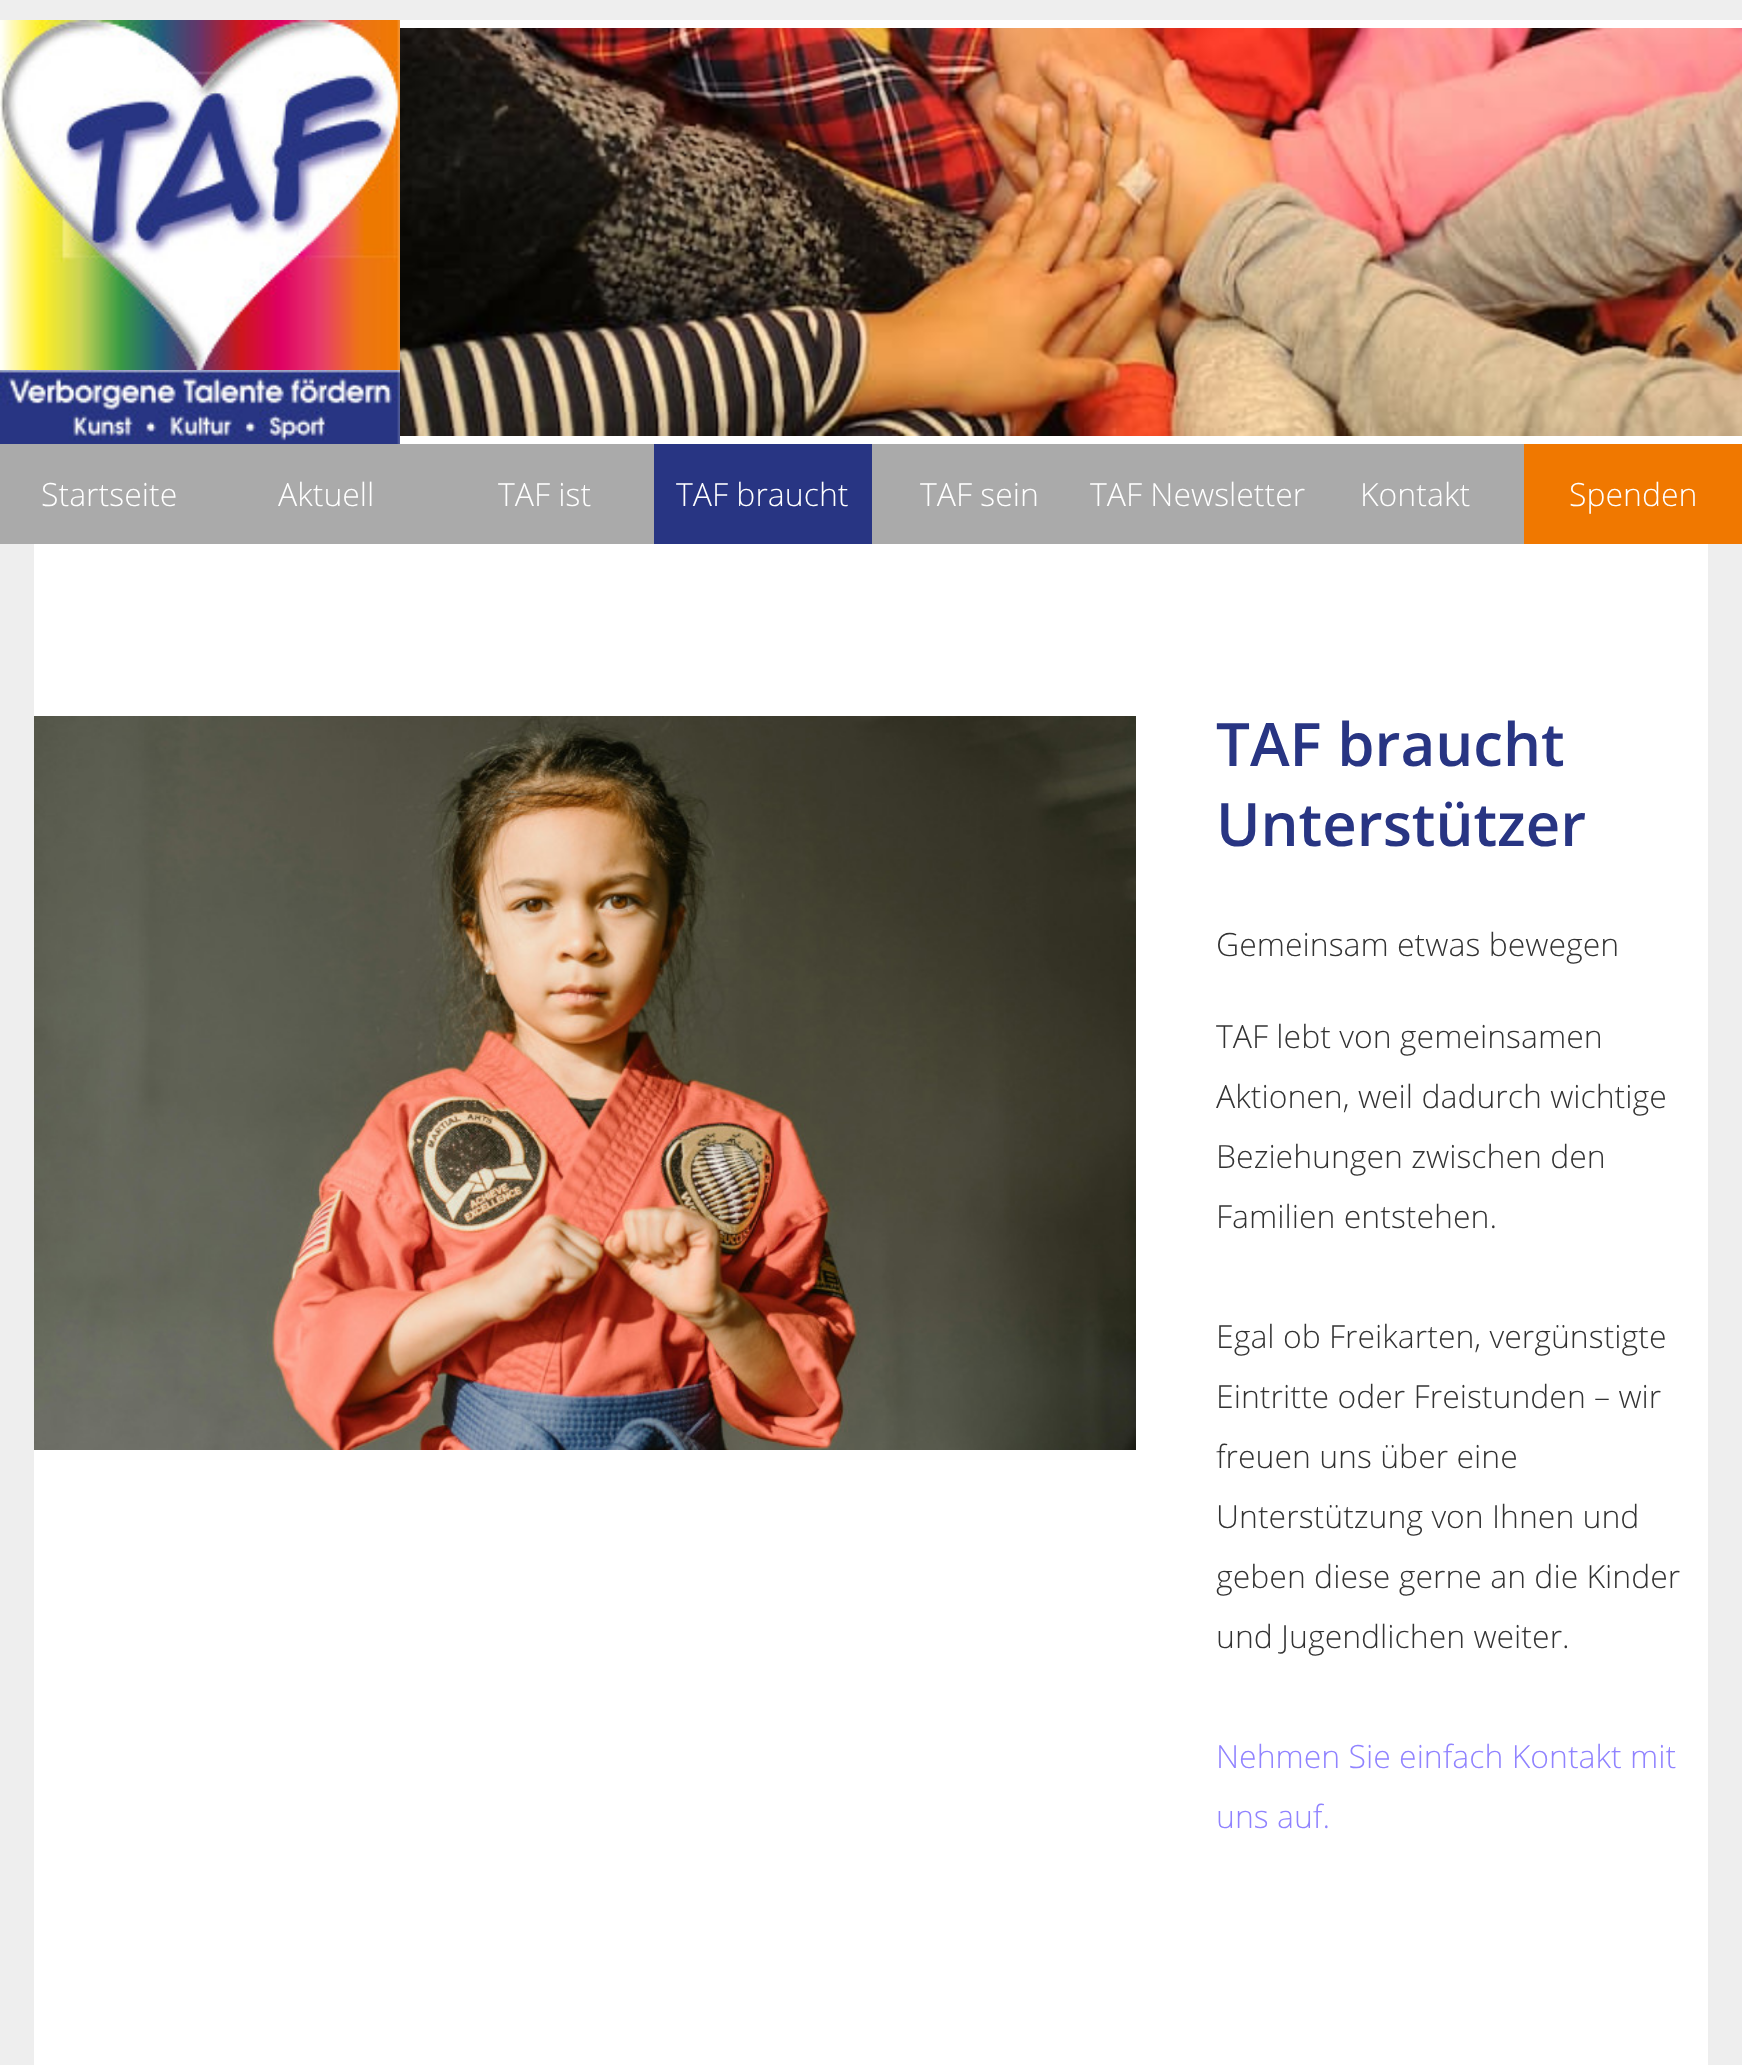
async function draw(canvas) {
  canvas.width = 1742
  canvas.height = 2065
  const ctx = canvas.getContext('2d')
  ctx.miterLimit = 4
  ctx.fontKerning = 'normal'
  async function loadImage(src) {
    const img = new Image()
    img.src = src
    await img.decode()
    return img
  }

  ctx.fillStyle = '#eee'
  ctx.fillRect(0, 0, 1742, 2065)
  ctx.drawImage(await loadImage('image0.png'), 0, 20, 400, 350)
  ctx.drawImage(await loadImage('image1.png'), 0, 370, 400, 74)
  ctx.fillStyle = '#fff'
  ctx.fillRect(400, 20, 1342, 424)
  ctx.drawImage(await loadImage('image2.png'), 400, 28, 1342, 408)
  ctx.fillStyle = '#aaa'
  ctx.fillRect(0, 444, 1524, 100)
  ctx.font = '300 32px Open Sans'
  ctx.fillStyle = '#fff'
  ctx.fillText('Startseite', 41, 506)
  ctx.fillText('Aktuell', 278, 506)
  ctx.fillText('TAF ist', 498, 506)
  ctx.fillStyle = '#283583'
  ctx.fillRect(654, 444, 218, 100)
  ctx.fillStyle = '#fff'
  ctx.fillText('TAF braucht', 676, 506)
  ctx.fillText('TAF sein', 920, 506)
  ctx.fillText('TAF Newsletter', 1090, 506)
  ctx.fillText('Kontakt', 1360, 506)
  ctx.fillStyle = '#f07800'
  ctx.fillRect(1524, 444, 218, 100)
  ctx.fillStyle = '#fff'
  ctx.fillText('Spenden', 1569, 506)
  ctx.fillRect(34, 544, 1674, 1521)
  ctx.drawImage(await loadImage('image3.png'), 34, 716, 1102, 734)
  ctx.font = '600 60px Open Sans'
  ctx.fillStyle = '#283583'
  ctx.fillText('TAF braucht', 1216, 766)
  ctx.fillText('Unterstützer', 1216, 846)
  ctx.font = '300 32px Open Sans'
  ctx.fillStyle = '#333'
  ctx.fillText('Gemeinsam etwas bewegen', 1216, 956)
  ctx.fillText('TAF lebt von gemeinsamen', 1216, 1048)
  ctx.fillText('Aktionen, weil dadurch wichtige', 1216, 1108)
  ctx.fillText('Beziehungen zwischen den', 1216, 1168)
  ctx.fillText('Familien entstehen.', 1216, 1228)
  ctx.fillText('Egal ob Freikarten, vergünstigte', 1216, 1348)
  ctx.fillText('Eintritte oder Freistunden – wir', 1216, 1408)
  ctx.fillText('freuen uns über eine', 1216, 1468)
  ctx.fillText('Unterstützung von Ihnen und', 1216, 1528)
  ctx.fillText('geben diese gerne an die Kinder', 1216, 1588)
  ctx.fillText('und Jugendlichen weiter.', 1216, 1648)
  ctx.fillStyle = '#9083ff'
  ctx.fillText('Nehmen Sie einfach Kontakt mit', 1216, 1768)
  ctx.fillText('uns auf.', 1216, 1828)
}

draw(document.querySelector('canvas'))
